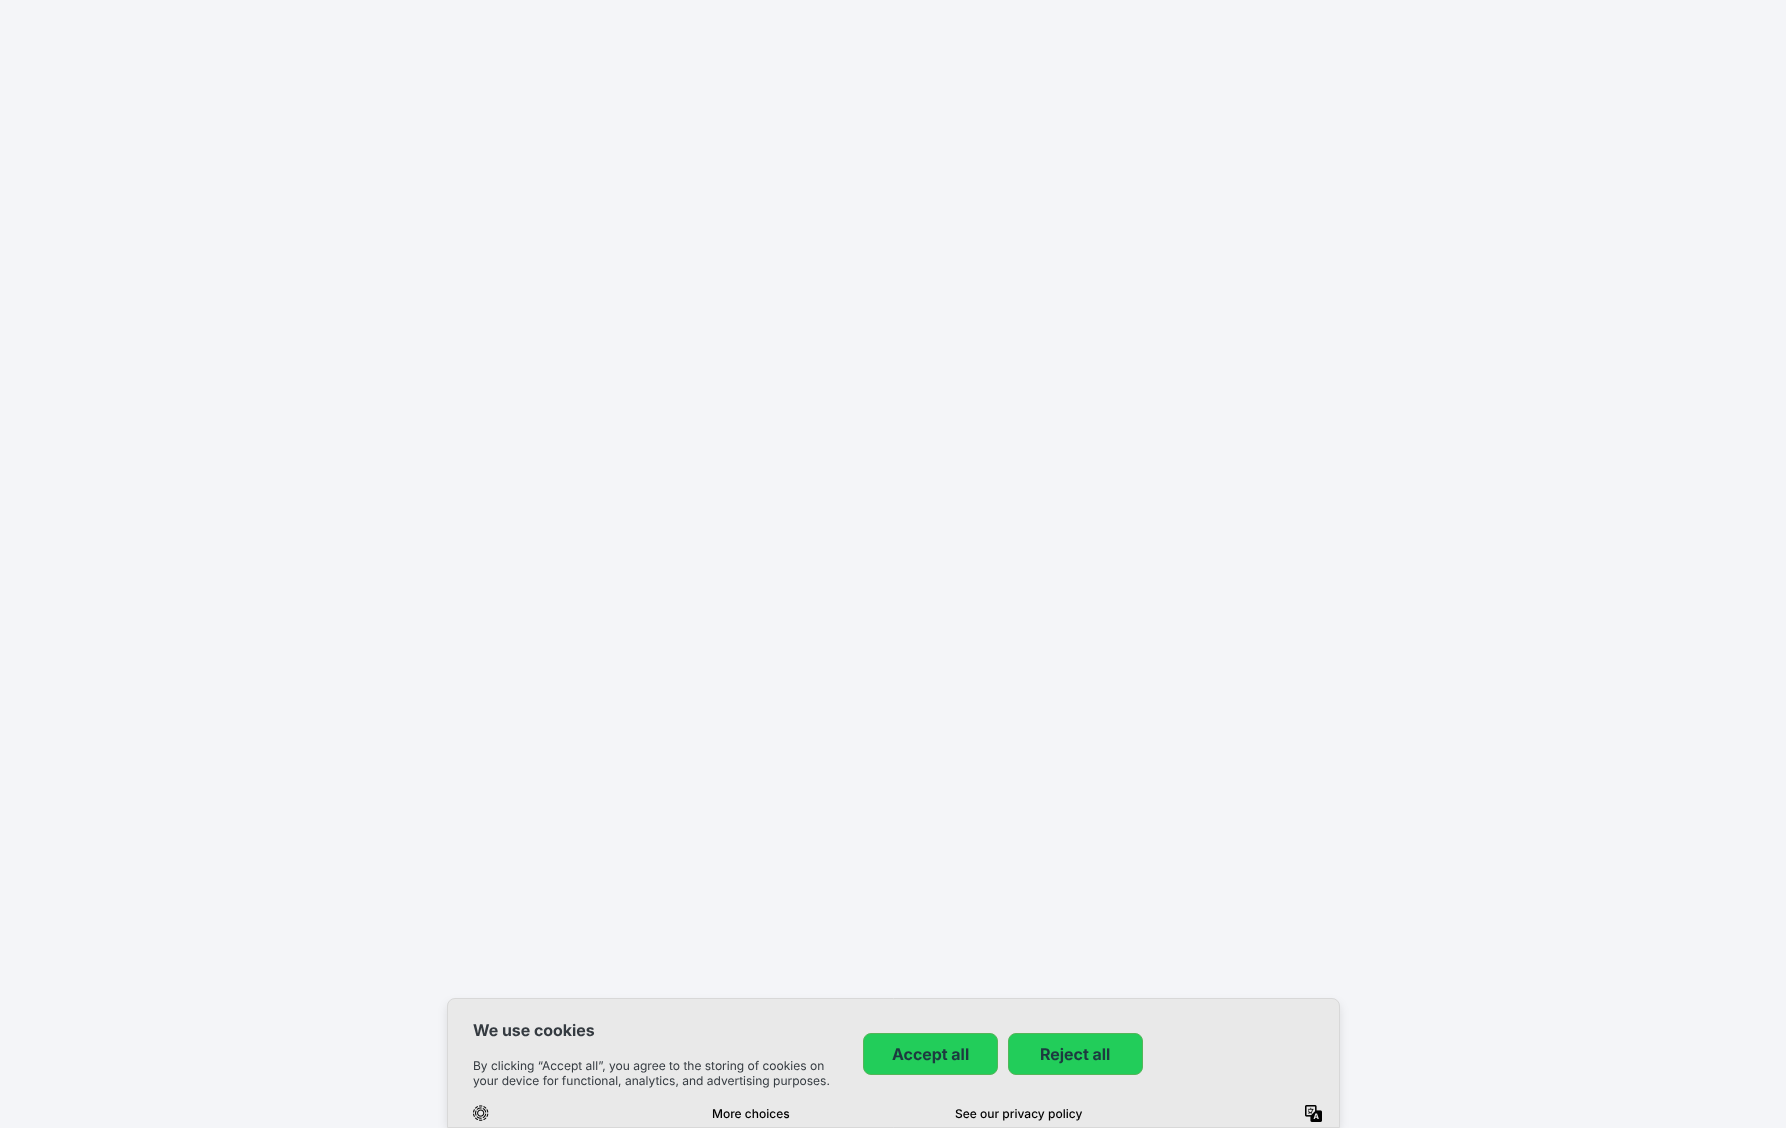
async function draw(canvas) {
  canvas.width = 1786
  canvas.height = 1128
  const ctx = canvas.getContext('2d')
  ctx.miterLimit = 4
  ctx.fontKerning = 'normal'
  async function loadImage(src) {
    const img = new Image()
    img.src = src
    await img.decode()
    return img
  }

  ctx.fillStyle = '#f4f5f8'
  ctx.fillRect(0, 0, 1786, 1128)
  ctx.fillStyle = '#0000001a'
  ctx.filter = 'blur(5px)'
  ctx.beginPath()
  ctx.roundRect(447, 1003, 893, 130, 8)
  ctx.fill()
  ctx.filter = 'none'
  ctx.fillStyle = '#e9e9e9'
  ctx.beginPath()
  ctx.roundRect(447.5, 998.5, 892, 129, [7.5, 7.5, 0, 0])
  ctx.fill()
  ctx.strokeStyle = '#d8d8d8'
  ctx.stroke()
  ctx.font = 'bold 16px Inter'
  ctx.fillStyle = '#353b41'
  ctx.fillText('We use cookies', 473, 1036)
  ctx.font = '12px Inter'
  ctx.fillText('By clicking “Accept all”, you agree to the storing of cookies on', 473, 1070)
  ctx.fillText('your device for functional, analytics, and advertising purposes.', 473, 1085)
  ctx.fillStyle = '#22cd5a'
  ctx.beginPath()
  ctx.roundRect(863.5, 1033.5, 134, 41, 7.5)
  ctx.fill()
  ctx.strokeStyle = '#54b659'
  ctx.stroke()
  ctx.font = 'bold 16px Inter'
  ctx.fillStyle = '#1d3a40'
  ctx.fillText('Accept all', 892, 1060)
  ctx.fillStyle = '#22cd5a'
  ctx.beginPath()
  ctx.roundRect(1008.5, 1033.5, 134, 41, 7.5)
  ctx.fill()
  ctx.stroke()
  ctx.fillStyle = '#1d3a40'
  ctx.fillText('Reject all', 1040, 1060)
  ctx.drawImage(await loadImage('image0.png'), 473, 1105, 16, 16)
  ctx.font = '500 12px Inter'
  ctx.fillStyle = '#010101'
  ctx.fillText('More choices', 712, 1118)
  ctx.fillText('See our privacy policy', 955, 1118)
  ctx.drawImage(await loadImage('image1.png'), 1305, 1105, 17, 17)
}

draw(document.querySelector('canvas'))
